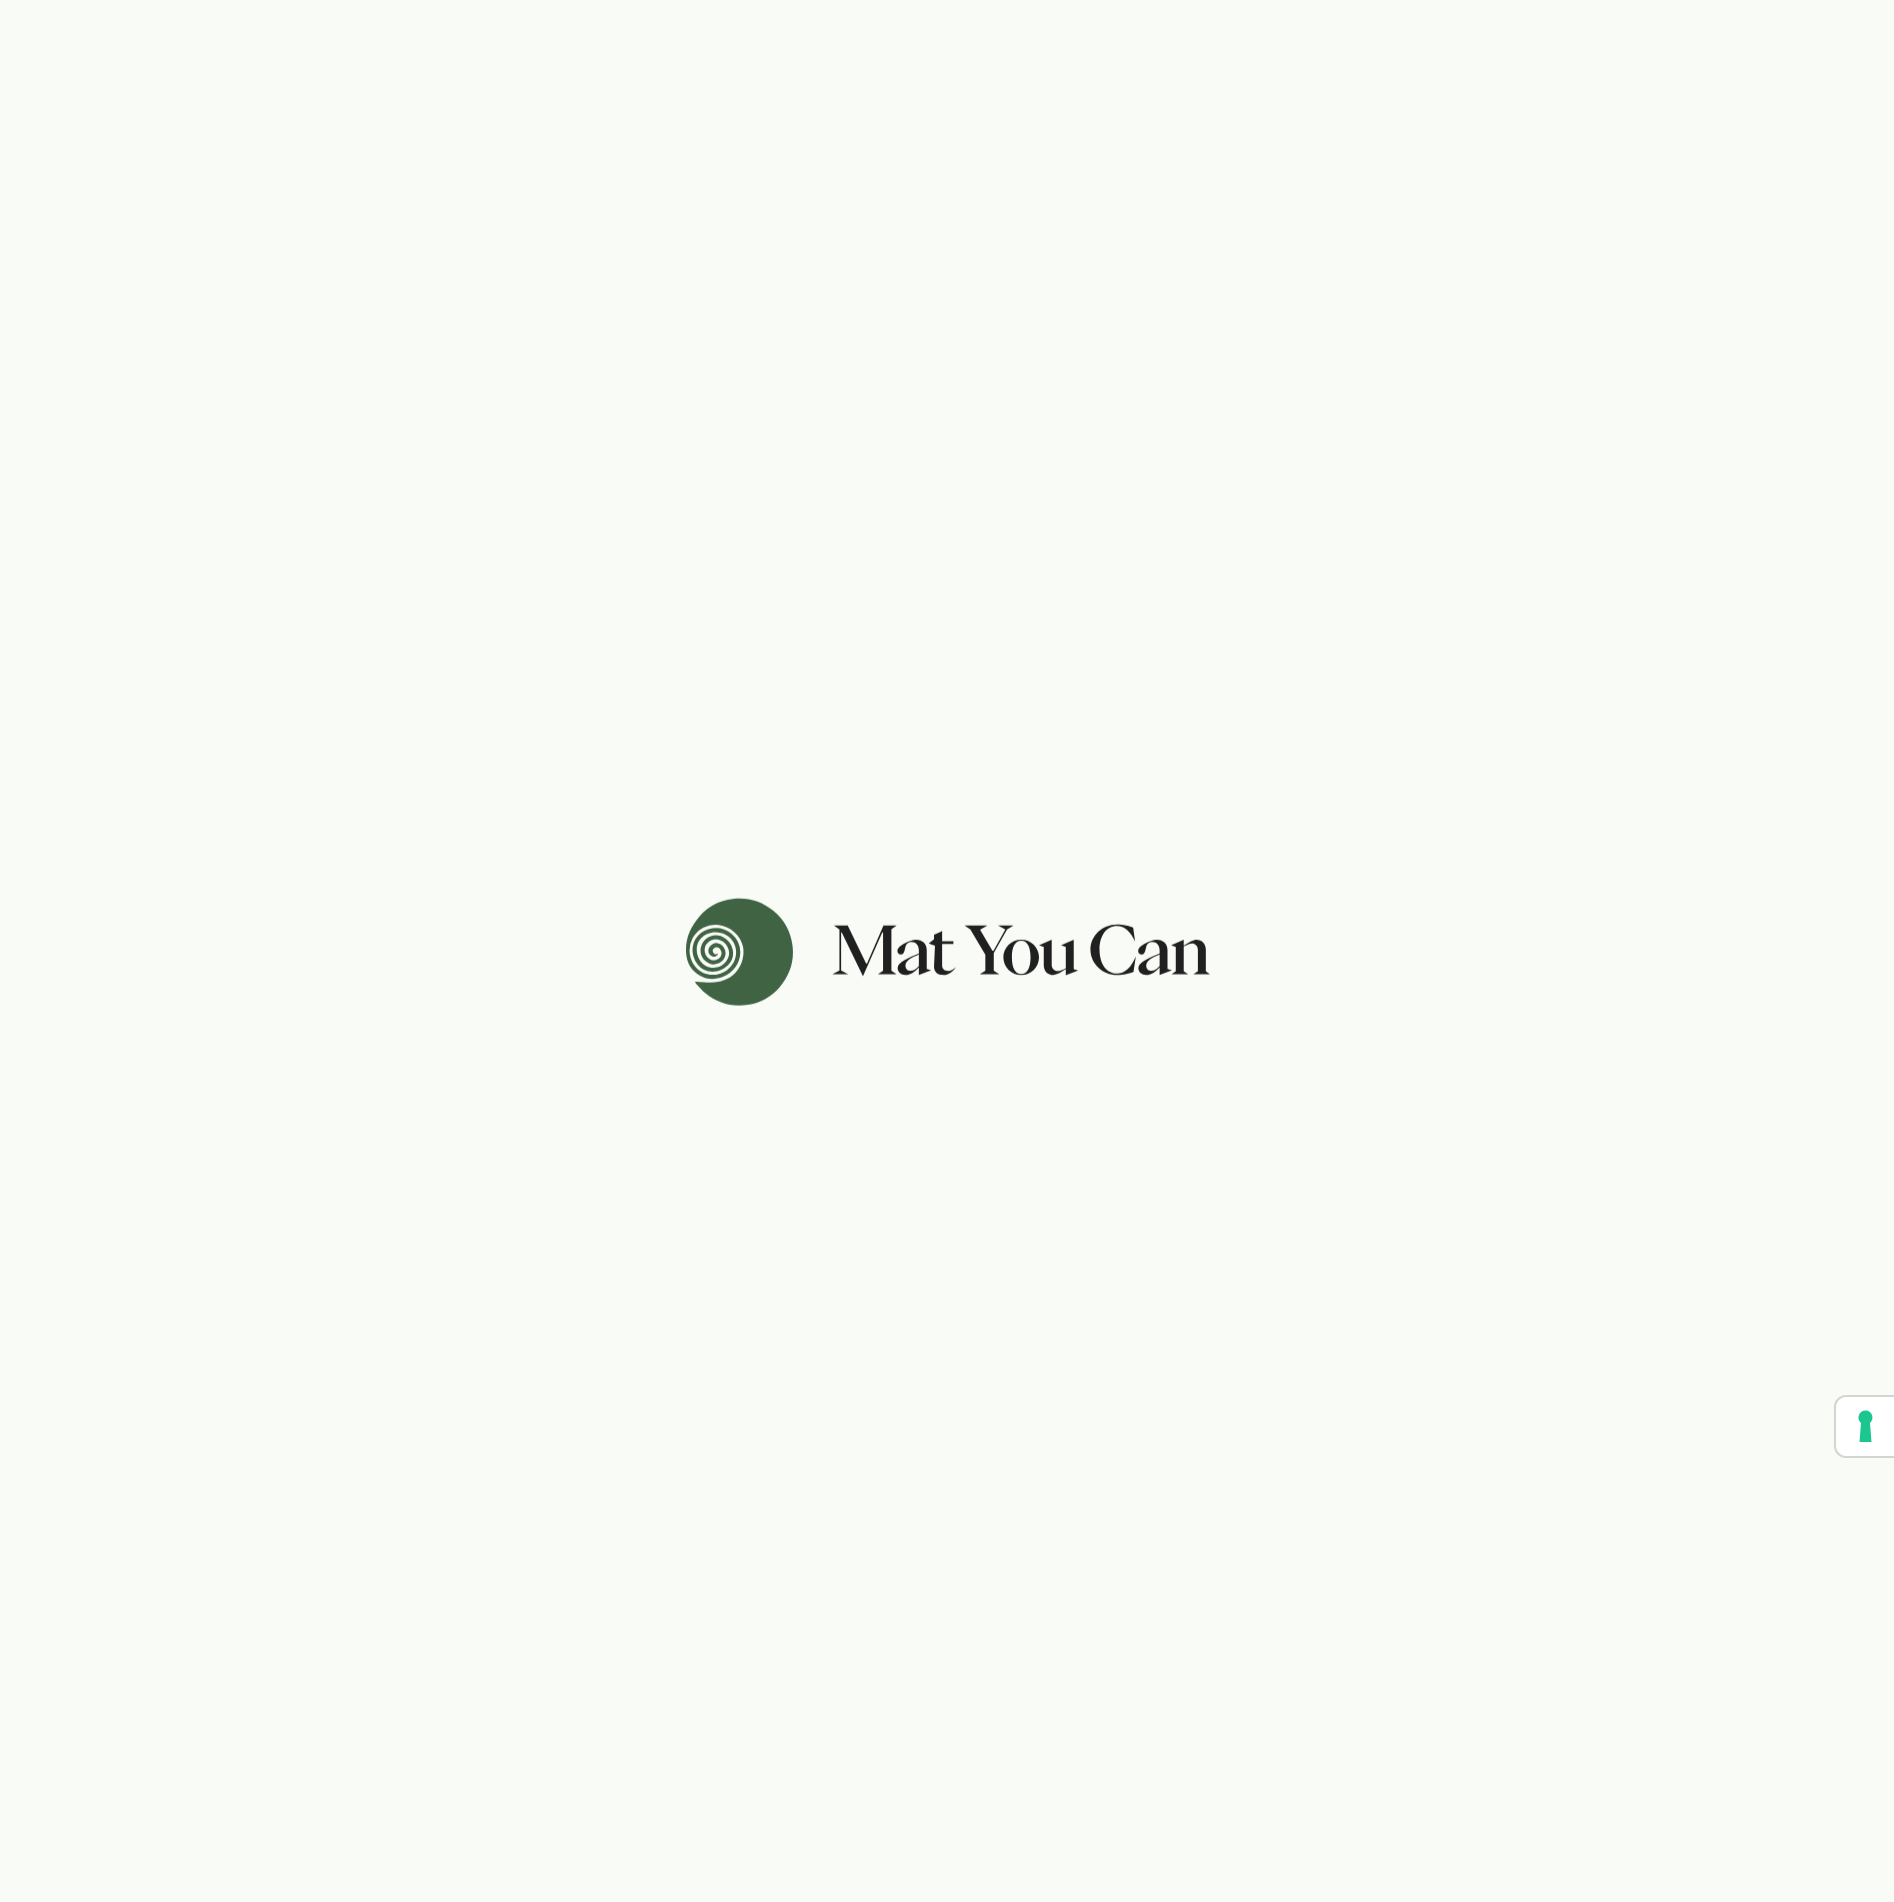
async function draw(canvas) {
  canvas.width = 1894
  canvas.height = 1902
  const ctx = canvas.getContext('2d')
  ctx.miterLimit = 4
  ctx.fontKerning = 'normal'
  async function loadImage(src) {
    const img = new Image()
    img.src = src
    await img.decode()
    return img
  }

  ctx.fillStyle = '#f9fbf6'
  ctx.fillRect(0, 0, 1894, 1902)
  ctx.drawImage(await loadImage('image0.png'), 686, 897, 524, 109)
  ctx.beginPath()
  ctx.moveTo(1846, 1396)
  ctx.lineTo(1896, 1396)
  ctx.lineTo(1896, 1457)
  ctx.lineTo(1846, 1457)
  ctx.bezierCurveTo(1840, 1457, 1835, 1452, 1835, 1446)
  ctx.lineTo(1835, 1407)
  ctx.bezierCurveTo(1835, 1401, 1840, 1396, 1846, 1396)
  ctx.closePath()
  ctx.strokeStyle = '#d4d5d1'
  ctx.lineWidth = 2
  ctx.stroke()
  ctx.fillStyle = '#fff'
  ctx.beginPath()
  ctx.moveTo(1847, 1397)
  ctx.lineTo(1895, 1397)
  ctx.lineTo(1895, 1456)
  ctx.lineTo(1847, 1456)
  ctx.bezierCurveTo(1841, 1456, 1836, 1451, 1836, 1445)
  ctx.lineTo(1836, 1408)
  ctx.bezierCurveTo(1836, 1402, 1841, 1397, 1847, 1397)
  ctx.closePath()
  ctx.fill()
  ctx.fillStyle = '#1cc691'
  ctx.beginPath()
  ctx.moveTo(1865.5, 1410.5)
  ctx.bezierCurveTo(1872, 1410.5, 1875, 1418.5, 1870, 1423)
  ctx.lineTo(1871.5, 1442)
  ctx.lineTo(1859.5, 1442)
  ctx.lineTo(1861, 1423)
  ctx.bezierCurveTo(1856, 1418.5, 1859, 1410.5, 1865.5, 1410.5)
  ctx.closePath()
  ctx.fill('evenodd')
}

draw(document.querySelector('canvas'))
